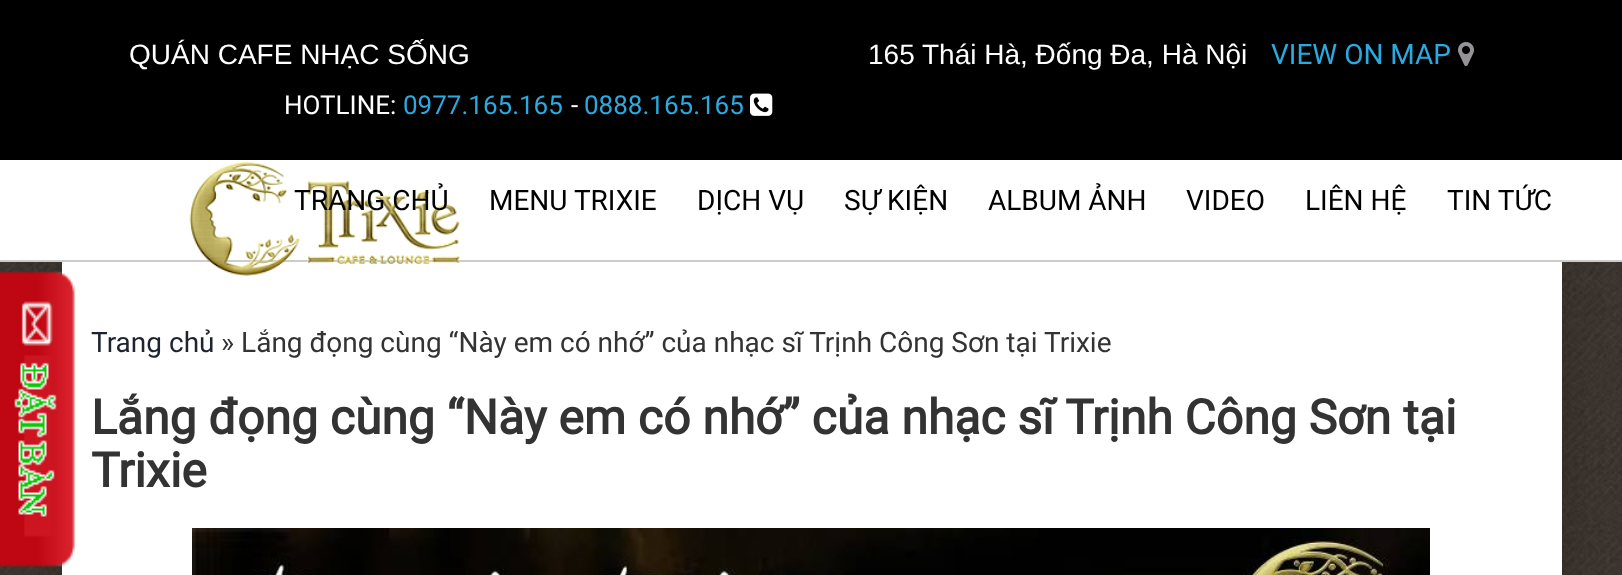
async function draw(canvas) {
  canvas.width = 1622
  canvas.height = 575
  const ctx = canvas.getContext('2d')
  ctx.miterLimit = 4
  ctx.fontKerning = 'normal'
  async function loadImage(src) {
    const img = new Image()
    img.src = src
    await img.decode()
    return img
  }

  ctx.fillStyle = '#fff'
  ctx.fillRect(0, 0, 1622, 575)
  ctx.drawImage(await loadImage('image4.png'), 0, 262, 1622, 313)
  ctx.save()
  ctx.beginPath()
  ctx.rect(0, 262, 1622, 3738)
  ctx.clip()
  ctx.fillStyle = '#00000033'
  ctx.filter = 'blur(20px)'
  ctx.beginPath()
  ctx.rect(62, 262, 1500, 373)
  ctx.fill()
  ctx.filter = 'none'
  ctx.restore()
  ctx.fillStyle = '#ccc'
  ctx.fillRect(0, 260, 1622, 2)
  ctx.fillStyle = '#000'
  ctx.fillRect(0, 0, 1622, 160)
  ctx.font = '28px Liberation Sans'
  ctx.fillStyle = '#fff'
  ctx.fillText('QUÁN CAFE NHẠC SỐNG', 129, 64)
  ctx.fillText('165 Thái Hà, Đống Đa, Hà Nội', 868, 64)
  ctx.font = '28px Roboto'
  ctx.fillStyle = '#29abe2'
  ctx.fillText('VIEW ON MAP', 1271, 64)
  ctx.drawImage(await loadImage('image0.png'), 1458, 42, 16, 24)
  ctx.font = '26px Roboto'
  ctx.fillStyle = '#fff'
  ctx.fillText('HOTLINE:', 284, 114)
  ctx.fillStyle = '#29abe2'
  ctx.fillText('0977.165.165', 403, 114)
  ctx.fillStyle = '#fff'
  ctx.fillText('-', 571, 114)
  ctx.fillStyle = '#29abe2'
  ctx.fillText('0888.165.165', 584, 114)
  ctx.drawImage(await loadImage('image1.png'), 750, 93, 23, 23)
  ctx.fillStyle = '#fff'
  ctx.fillRect(62, 262, 1500, 313)
  ctx.drawImage(await loadImage('image2.png'), 189, 161, 271, 115)
  ctx.font = '28px Roboto'
  ctx.fillStyle = '#000'
  ctx.fillText('TRANG CHỦ', 294, 210)
  ctx.fillText('MENU TRIXIE', 489, 210)
  ctx.fillText('DỊCH VỤ', 697, 210)
  ctx.fillText('SỰ KIỆN', 844, 210)
  ctx.fillText('ALBUM ẢNH', 988, 210)
  ctx.fillText('VIDEO', 1186, 210)
  ctx.fillText('LIÊN HỆ', 1305, 210)
  ctx.fillText('TIN TỨC', 1447, 210)
  ctx.drawImage(await loadImage('image3.png'), 0, 271, 75, 296)
  ctx.fillStyle = '#1b242f'
  ctx.fillText('Trang chủ', 91, 352)
  ctx.fillStyle = '#333'
  ctx.fillText('» Lắng đọng cùng “Này em có nhớ” của nhạc sĩ Trịnh Công Sơn tại Trixie', 221, 352)
  ctx.font = 'bold 48px Roboto'
  ctx.fillText('Lắng đọng cùng “Này em có nhớ” của nhạc sĩ Trịnh Công Sơn tại', 91, 434)
  ctx.fillText('Trixie', 91, 487)
  ctx.drawImage(await loadImage('image5.png'), 192, 528, 1238, 47)
}

draw(document.querySelector('canvas'))
